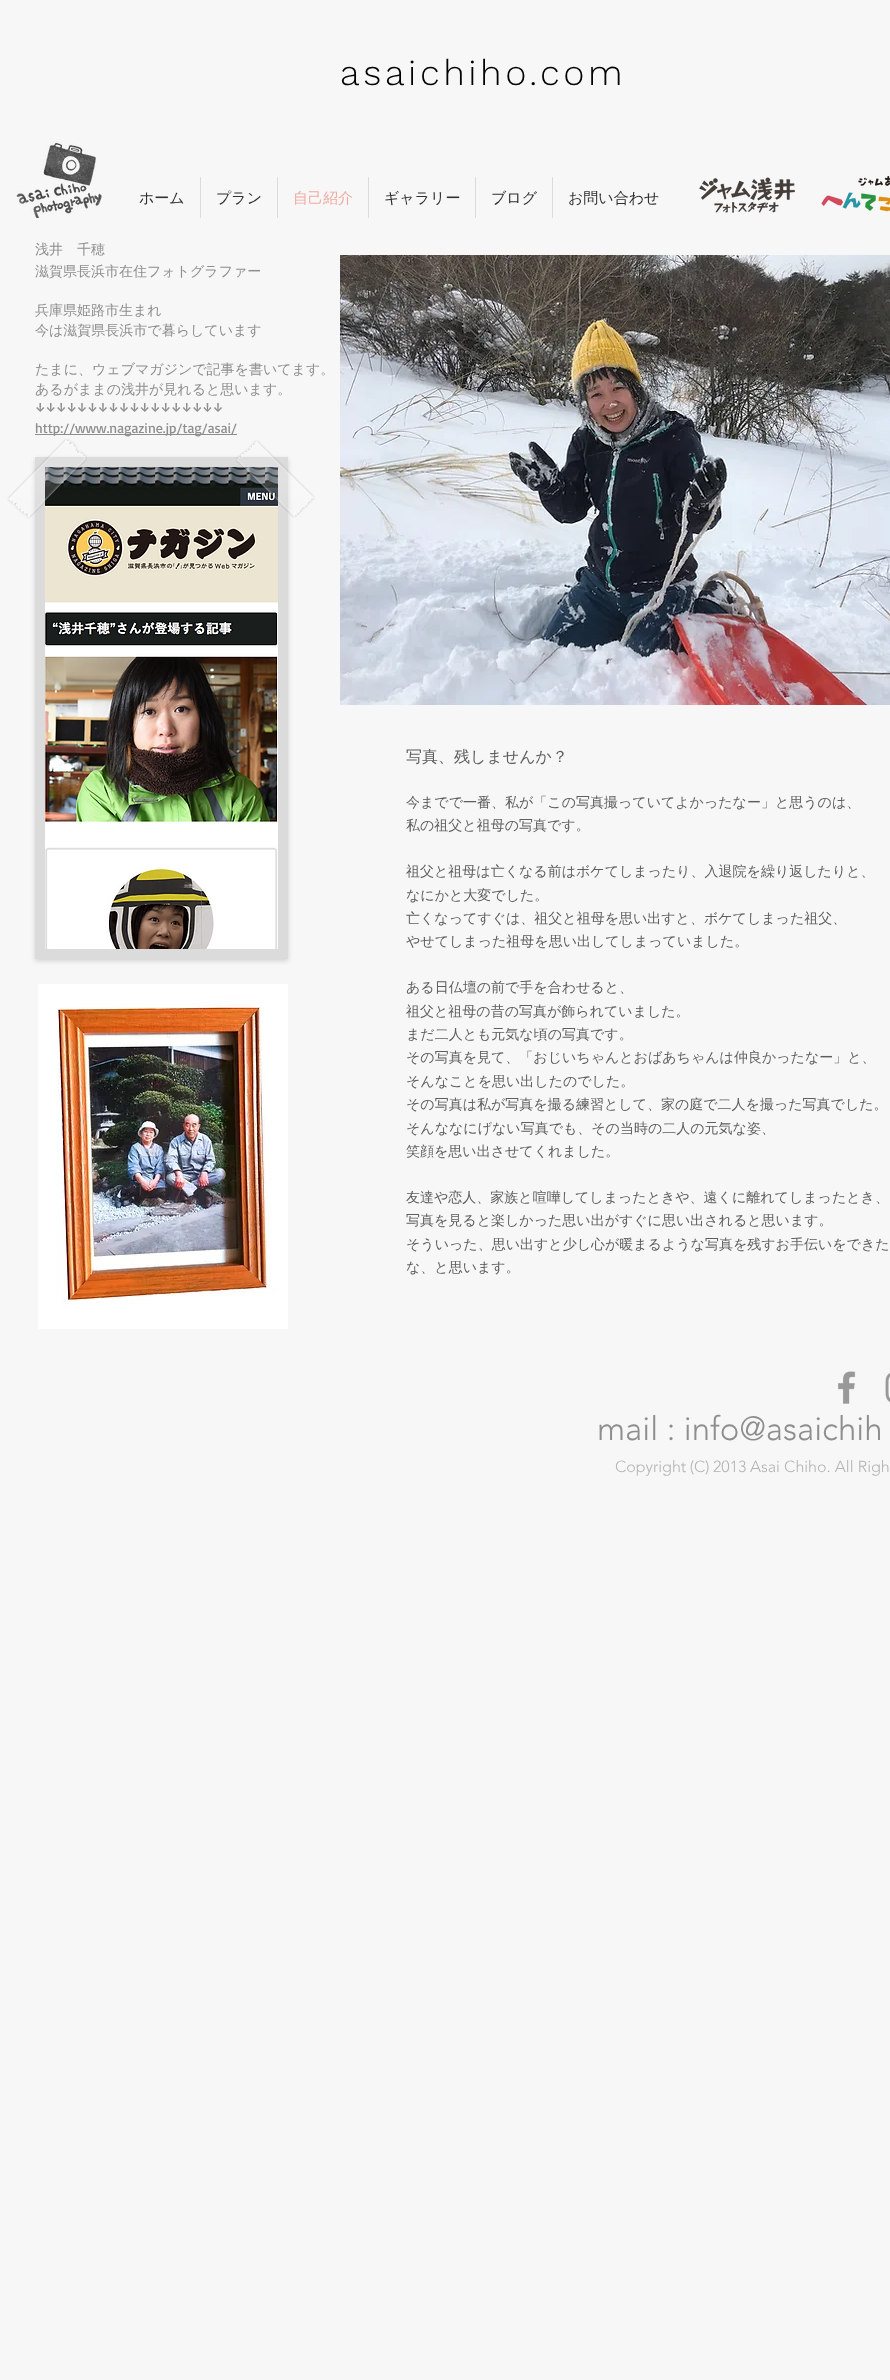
async function draw(canvas) {
  canvas.width = 890
  canvas.height = 2380
  const ctx = canvas.getContext('2d')
  ctx.miterLimit = 4
  ctx.fontKerning = 'normal'
  async function loadImage(src) {
    const img = new Image()
    img.src = src
    await img.decode()
    return img
  }

  ctx.fillStyle = '#f7f7f7'
  ctx.fillRect(0, 0, 890, 2380)
  ctx.letterSpacing = '3.6px'
  ctx.font = '300 36px Work Sans'
  ctx.fillStyle = '#000'
  ctx.fillText('asaichiho.com', 340, 85)
  ctx.drawImage(await loadImage('image0.png'), 16, 142, 86, 76)
  ctx.letterSpacing = '0px'
  ctx.font = '500 15px WenQuanYi Zen Hei'
  ctx.fillStyle = '#2f2f2f'
  ctx.fillText('ホーム', 139, 203)
  ctx.fillStyle = '#dbdbdb'
  ctx.fillRect(200, 177, 1, 41)
  ctx.fillStyle = '#2f2f2f'
  ctx.fillText('プラン', 216, 203)
  ctx.fillStyle = '#dbdbdb'
  ctx.fillRect(277, 177, 1, 41)
  ctx.fillStyle = '#efab9f'
  ctx.fillText('自己紹介', 293, 203)
  ctx.fillStyle = '#dbdbdb'
  ctx.fillRect(368, 177, 1, 41)
  ctx.fillStyle = '#2f2f2f'
  ctx.fillText('ギャラリー', 384, 203)
  ctx.fillStyle = '#dbdbdb'
  ctx.fillRect(475, 177, 1, 41)
  ctx.fillStyle = '#2f2f2f'
  ctx.fillText('ブログ', 491, 203)
  ctx.fillStyle = '#dbdbdb'
  ctx.fillRect(552, 177, 1, 41)
  ctx.fillStyle = '#2f2f2f'
  ctx.fillText('お問い合わせ', 568, 203)
  ctx.drawImage(await loadImage('image1.png'), 699, 177, 96, 36)
  ctx.drawImage(await loadImage('image2.png'), 821, 176, 69, 36)
  ctx.font = '500 14px WenQuanYi Zen Hei'
  ctx.fillStyle = '#8e8e8e'
  ctx.fillText('浅井　千穂', 35, 254)
  ctx.fillText('滋賀県長浜市在住フォトグラファー', 35, 276)
  ctx.fillText('兵庫県姫路市生まれ', 35, 315)
  ctx.fillText('今は滋賀県長浜市で暮らしています', 35, 335)
  ctx.fillText('たまに、ウェブマガジンで記事を書いてます。', 35, 374)
  ctx.fillText('あるがままの浅井が見れると思います。', 35, 394)
  ctx.font = '14px Basic'
  ctx.fillText('↓↓↓↓↓↓↓↓↓↓↓↓↓↓↓↓↓↓', 35, 413)
  ctx.fillRect(35, 434, 202, 1)
  ctx.fillText('http://www.nagazine.jp/tag/asai/', 35, 433)
  ctx.drawImage(await loadImage('image3.png'), 340, 255, 550, 450)
  ctx.fillStyle = '#00000026'
  ctx.filter = 'blur(2.5px)'
  ctx.beginPath()
  ctx.rect(35, 459, 253, 502)
  ctx.fill()
  ctx.filter = 'none'
  ctx.strokeStyle = '#dbdbdb'
  ctx.lineWidth = 10
  ctx.strokeRect(40, 462, 243, 492)
  ctx.drawImage(await loadImage('image6.png'), 45, 467, 233, 482)
  ctx.drawImage(await loadImage('image4.png'), 7, 439, 80, 80)
  ctx.drawImage(await loadImage('image5.png'), 236, 440, 79, 78)
  ctx.font = '500 16px WenQuanYi Zen Hei'
  ctx.fillStyle = '#5e5e5e'
  ctx.fillText('写真、残しませんか？', 406, 762)
  ctx.font = '500 14px WenQuanYi Zen Hei'
  ctx.fillText('今までで一番、私が「この写真撮っていてよかったなー」と思うのは、', 406, 807)
  ctx.fillText('私の祖父と祖母の写真です。', 406, 830)
  ctx.fillText('祖父と祖母は亡くなる前はボケてしまったり、入退院を繰り返したりと、', 406, 876)
  ctx.fillText('なにかと大変でした。', 406, 900)
  ctx.fillText('亡くなってすぐは、祖父と祖母を思い出すと、ボケてしまった祖父、', 406, 923)
  ctx.fillText('やせてしまった祖母を思い出してしまっていました。', 406, 946)
  ctx.fillText('ある日仏壇の前で手を合わせると、', 406, 992)
  ctx.fillText('祖父と祖母の昔の写真が飾られていました。', 406, 1016)
  ctx.fillText('まだ二人とも元気な頃の写真です。', 406, 1039)
  ctx.fillText('その写真を見て、「おじいちゃんとおばあちゃんは仲良かったなー」と、', 406, 1062)
  ctx.fillText('そんなことを思い出したのでした。', 406, 1086)
  ctx.fillText('その写真は私が写真を撮る練習として、家の庭で二人を撮った写真でした。', 406, 1109)
  ctx.fillText('そんななにげない写真でも、その当時の二人の元気な姿、', 406, 1133)
  ctx.fillText('笑顔を思い出させてくれました。', 406, 1156)
  ctx.fillText('友達や恋人、家族と喧嘩してしまったときや、遠くに離れてしまったとき、', 406, 1202)
  ctx.fillText('写真を見ると楽しかった思い出がすぐに思い出されると思います。', 406, 1225)
  ctx.fillText('そういった、思い出すと少し心が暖まるような写真を残すお手伝いをできた', 406, 1249)
  ctx.fillText('な、と思います。', 406, 1272)
  ctx.drawImage(await loadImage('image7.png'), 38, 984, 250, 345)
  ctx.drawImage(await loadImage('image8.png'), 838, 1371, 18, 33)
  ctx.drawImage(await loadImage('image9.png'), 885, 1373, 5, 29)
  ctx.font = '300 33px "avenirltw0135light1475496"'
  ctx.fillStyle = '#8e8e8e'
  ctx.fillText('mail : info@asaichih', 597, 1440)
  ctx.wordSpacing = '-0.5px'
  ctx.font = '300 16px "avenirltw0135light1475496"'
  ctx.fillStyle = '#b3b3b3'
  ctx.fillText('Copyright (C) 2013 A', 615, 1472)
  ctx.wordSpacing = '0px'
  ctx.fillText('sai Chiho. All Righ', 761, 1472)
}

draw(document.querySelector('canvas'))
